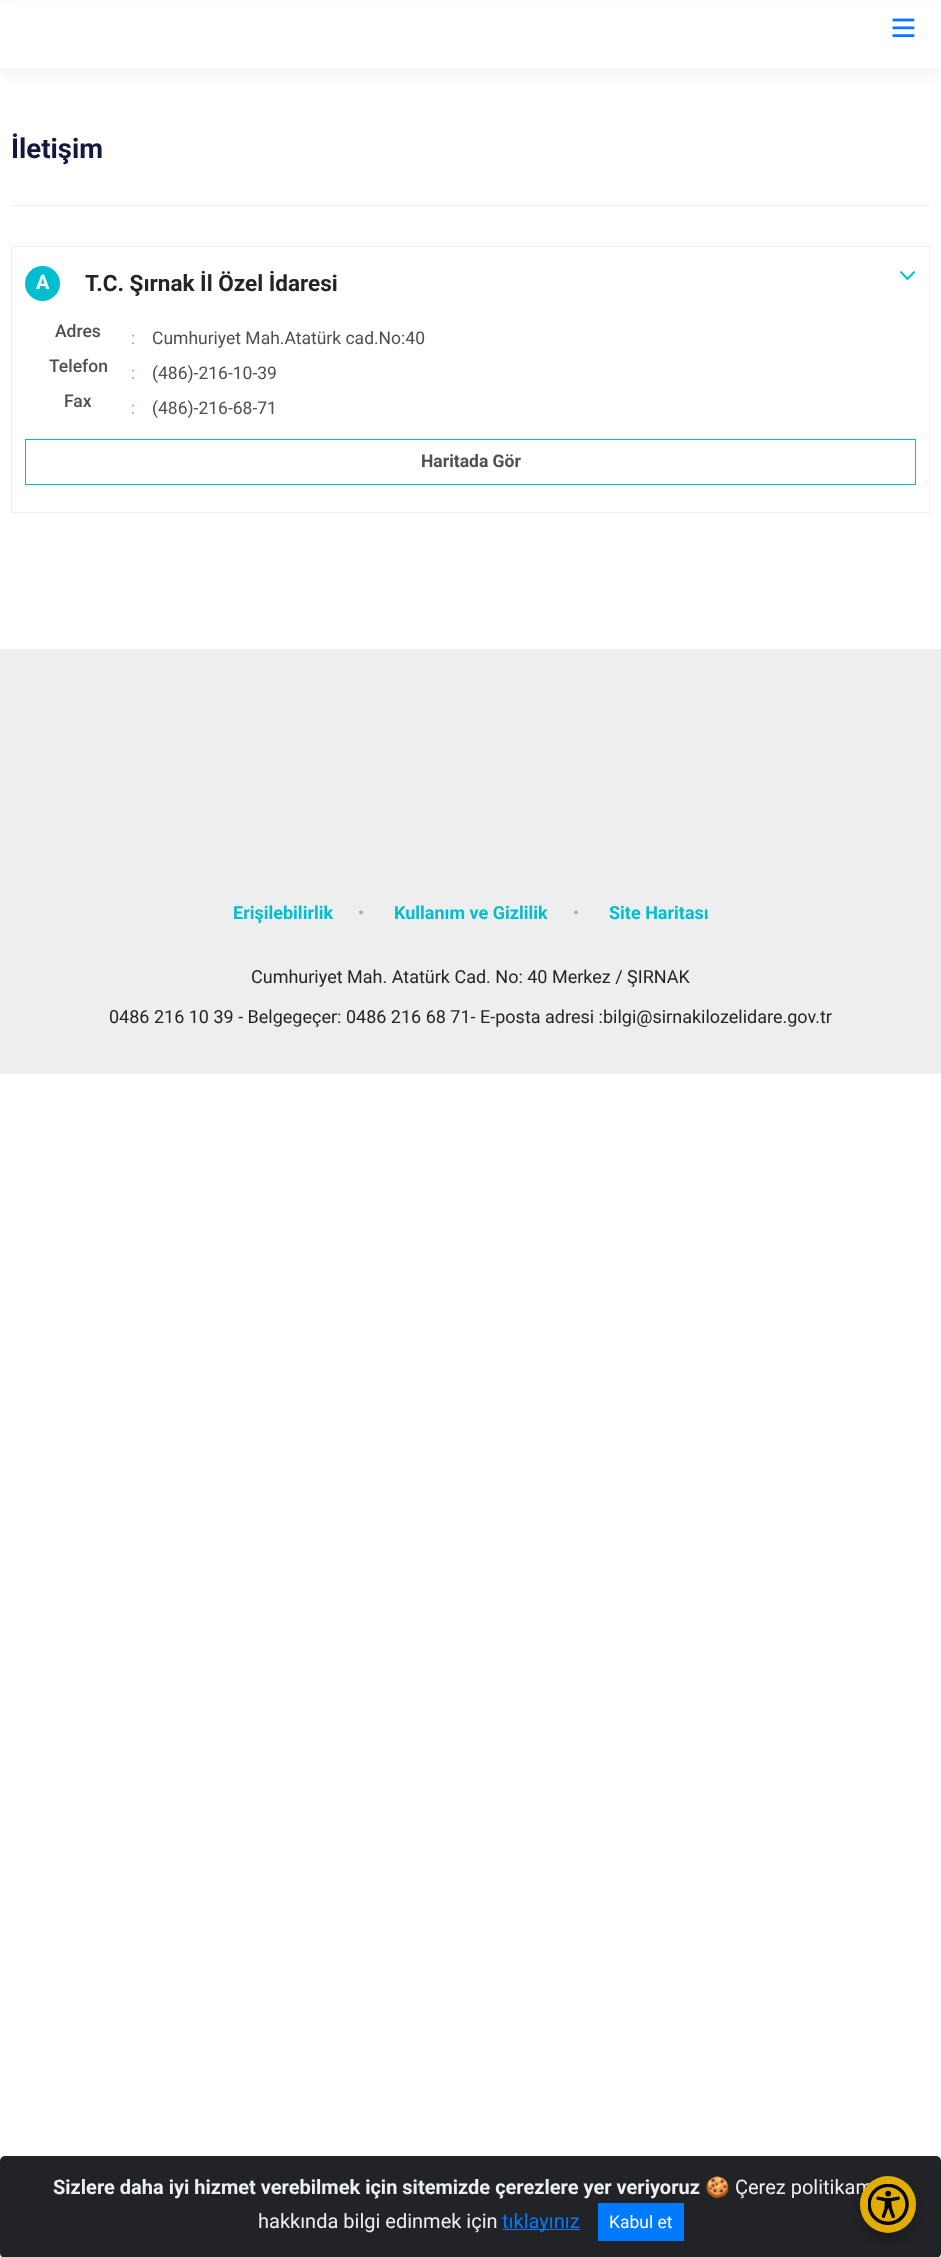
async function draw(canvas) {
  canvas.width = 941
  canvas.height = 2257
  const ctx = canvas.getContext('2d')
  ctx.miterLimit = 4
  ctx.fontKerning = 'normal'
  async function loadImage(src) {
    const img = new Image()
    img.src = src
    await img.decode()
    return img
  }

  ctx.fillStyle = '#fff'
  ctx.fillRect(0, 0, 941, 2257)
  ctx.fillStyle = '#eeeeee9e'
  ctx.filter = 'blur(6px)'
  ctx.beginPath()
  ctx.rect(0, 8, 941, 67)
  ctx.fill()
  ctx.filter = 'none'
  ctx.fillStyle = '#fff'
  ctx.fillRect(0, 4, 941, 64)
  ctx.drawImage(await loadImage('image0.png'), 892, 18, 23, 19)
  ctx.fillStyle = '#eee'
  ctx.fillRect(11, 205, 919, 1)
  ctx.font = 'bold 27.5px Roboto'
  ctx.fillStyle = '#13183e'
  ctx.fillText('İletişim', 11, 158)
  ctx.strokeStyle = '#eee'
  ctx.strokeRect(11.5, 246.5, 918, 266)
  ctx.fillStyle = '#00bed0'
  ctx.beginPath()
  ctx.arc(42.5, 283.5, 17.5, 0, 2 * Math.PI)
  ctx.fill()
  ctx.font = 'bold 20px Roboto'
  ctx.fillStyle = '#fff'
  ctx.fillText('A', 36, 289)
  ctx.font = 'bold 22.5px Roboto'
  ctx.fillStyle = '#212529'
  ctx.fillText('T.C. Şırnak İl Özel İdaresi', 85, 291)
  ctx.drawImage(await loadImage('image1.png'), 900, 271, 15, 10)
  ctx.font = '500 17.5px Roboto'
  ctx.fillStyle = '#4f4f4f'
  ctx.fillText('Adres', 55, 337)
  ctx.font = '17.5px Roboto'
  ctx.fillStyle = '#d2935b'
  ctx.fillText(':', 131, 344)
  ctx.fillStyle = '#4f4f4f'
  ctx.fillText('Cumhuriyet Mah.Atatürk cad.No:40', 152, 344)
  ctx.font = '500 17.5px Roboto'
  ctx.fillText('Telefon', 49, 372)
  ctx.font = '17.5px Roboto'
  ctx.fillStyle = '#d2935b'
  ctx.fillText(':', 131, 379)
  ctx.fillStyle = '#4f4f4f'
  ctx.fillText('(486)-216-10-39', 152, 379)
  ctx.font = '500 17.5px Roboto'
  ctx.fillText('Fax', 64, 407)
  ctx.font = '17.5px Roboto'
  ctx.fillStyle = '#d2935b'
  ctx.fillText(':', 131, 414)
  ctx.fillStyle = '#4f4f4f'
  ctx.fillText('(486)-216-68-71', 152, 414)
  ctx.strokeStyle = '#00bed0'
  ctx.strokeRect(25.5, 439.5, 890, 45)
  ctx.font = 'bold 17.5px Roboto'
  ctx.fillText('Haritada Gör', 421, 467)
  ctx.fillStyle = '#eee'
  ctx.fillRect(0, 649, 941, 425)
  ctx.font = 'bold 18px Roboto'
  ctx.fillStyle = '#00bed0'
  ctx.fillText('Erişilebilirlik', 233, 919)
  ctx.font = '18px Roboto'
  ctx.fillStyle = '#aaa'
  ctx.fillText('•', 358, 919)
  ctx.font = 'bold 18px Roboto'
  ctx.fillStyle = '#00bed0'
  ctx.fillText('Kullanım ve Gizlilik', 394, 919)
  ctx.font = '18px Roboto'
  ctx.fillStyle = '#aaa'
  ctx.fillText('•', 573, 919)
  ctx.font = 'bold 18px Roboto'
  ctx.fillStyle = '#00bed0'
  ctx.fillText('Site Haritası', 609, 919)
  ctx.font = '18px Roboto'
  ctx.fillStyle = '#212529'
  ctx.fillText('Cumhuriyet Mah. Atatürk Cad. No: 40 Merkez / ŞIRNAK', 251, 983)
  ctx.fillText('0486 216 10 39 - Belgegeçer: 0486 216 68 71- E-posta adresi :bilgi@sirnakilozelidare.gov.tr', 109, 1023)
  ctx.fillStyle = '#212327'
  ctx.beginPath()
  ctx.roundRect(0, 2156, 941, 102, 5)
  ctx.fill()
  ctx.font = 'bold 20px Roboto'
  ctx.fillStyle = '#ecf0f1'
  ctx.fillText('Sizlere daha iyi hizmet verebilmek için sitemizde çerezlere yer veriyoruz', 53, 2194)
  ctx.font = '20px Noto Color Emoji'
  ctx.fillText('🍪', 705, 2194)
  ctx.font = '20px Roboto'
  ctx.fillText('Çerez politikam', 735, 2194)
  ctx.fillText('hakkında bilgi edinmek için', 258, 2228)
  ctx.fillStyle = '#007bff'
  ctx.fillRect(503, 2229, 77, 1)
  ctx.fillText('tıklayınız', 502, 2228)
  ctx.fillRect(598, 2203, 86, 38)
  ctx.font = '17.5px Roboto'
  ctx.fillStyle = '#fff'
  ctx.fillText('Kabul et', 609, 2228)
  ctx.fillStyle = '#00000033'
  ctx.filter = 'blur(5px)'
  ctx.beginPath()
  ctx.roundRect(860, 2184, 56, 56, 28)
  ctx.fill()
  ctx.filter = 'none'
  ctx.fillStyle = '#e1ad01'
  ctx.beginPath()
  ctx.roundRect(860, 2176, 56, 57, 28)
  ctx.fill()
  ctx.drawImage(await loadImage('image2.png'), 868, 2184, 41, 41)
}

draw(document.querySelector('canvas'))
